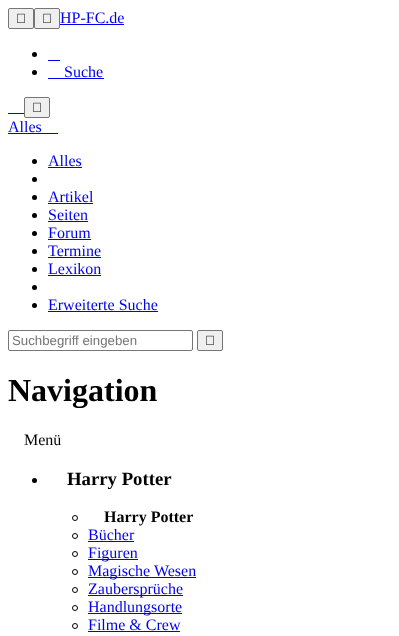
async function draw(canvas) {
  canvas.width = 399
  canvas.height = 636
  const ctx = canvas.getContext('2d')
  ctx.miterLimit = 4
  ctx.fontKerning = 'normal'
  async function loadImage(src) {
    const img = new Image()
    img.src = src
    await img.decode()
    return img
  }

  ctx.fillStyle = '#fff'
  ctx.fillRect(0, 0, 399, 636)
  ctx.fillStyle = '#efefef'
  ctx.beginPath()
  ctx.roundRect(8.5, 8.5, 25, 20, 1.5)
  ctx.fill()
  ctx.strokeStyle = '#767676'
  ctx.stroke()
  ctx.drawImage(await loadImage('image0.png'), 17, 13, 8, 10)
  ctx.beginPath()
  ctx.roundRect(34.5, 8.5, 25, 20, 1.5)
  ctx.fill()
  ctx.stroke()
  ctx.drawImage(await loadImage('image0.png'), 43, 13, 8, 10)
  ctx.font = '16px Liberation Serif'
  ctx.fillStyle = '#00e'
  ctx.fillText('HP-FC.de', 60, 23)
  ctx.fillRect(60, 24, 64, 1)
  ctx.fillStyle = '#000'
  ctx.beginPath()
  ctx.arc(34.5, 54.5, 2.5, 0, 2 * Math.PI)
  ctx.fill()
  ctx.fillStyle = '#00e'
  ctx.fillRect(48, 60, 12, 1)
  ctx.fillStyle = '#000'
  ctx.beginPath()
  ctx.arc(34.5, 72.5, 2.5, 0, 2 * Math.PI)
  ctx.fill()
  ctx.fillStyle = '#00e'
  ctx.fillText('Suche', 64, 77)
  ctx.fillRect(48, 78, 56, 1)
  ctx.fillRect(8, 113, 16, 1)
  ctx.fillStyle = '#efefef'
  ctx.beginPath()
  ctx.roundRect(24.5, 97.5, 25, 20, 1.5)
  ctx.fill()
  ctx.stroke()
  ctx.drawImage(await loadImage('image0.png'), 33, 102, 8, 10)
  ctx.fillStyle = '#00e'
  ctx.fillText('Alles', 8, 132)
  ctx.fillRect(8, 133, 50, 1)
  ctx.fillStyle = '#000'
  ctx.beginPath()
  ctx.arc(34.5, 161.5, 2.5, 0, 2 * Math.PI)
  ctx.fill()
  ctx.fillStyle = '#00e'
  ctx.fillText('Alles', 48, 166)
  ctx.fillRect(48, 167, 34, 1)
  ctx.fillStyle = '#000'
  ctx.beginPath()
  ctx.arc(34.5, 179.5, 2.5, 0, 2 * Math.PI)
  ctx.fill()
  ctx.beginPath()
  ctx.arc(34.5, 197.5, 2.5, 0, 2 * Math.PI)
  ctx.fill()
  ctx.fillStyle = '#00e'
  ctx.fillText('Artikel', 48, 202)
  ctx.fillRect(48, 203, 45, 1)
  ctx.fillStyle = '#000'
  ctx.beginPath()
  ctx.arc(34.5, 215.5, 2.5, 0, 2 * Math.PI)
  ctx.fill()
  ctx.fillStyle = '#00e'
  ctx.fillText('Seiten', 48, 220)
  ctx.fillRect(48, 221, 40, 1)
  ctx.fillStyle = '#000'
  ctx.beginPath()
  ctx.arc(34.5, 233.5, 2.5, 0, 2 * Math.PI)
  ctx.fill()
  ctx.fillStyle = '#00e'
  ctx.fillText('Forum', 48, 238)
  ctx.fillRect(48, 239, 43, 1)
  ctx.fillStyle = '#000'
  ctx.beginPath()
  ctx.arc(34.5, 251.5, 2.5, 0, 2 * Math.PI)
  ctx.fill()
  ctx.fillStyle = '#00e'
  ctx.fillText('Termine', 48, 256)
  ctx.fillRect(48, 257, 53, 1)
  ctx.fillStyle = '#000'
  ctx.beginPath()
  ctx.arc(34.5, 269.5, 2.5, 0, 2 * Math.PI)
  ctx.fill()
  ctx.fillStyle = '#00e'
  ctx.fillText('Lexikon', 48, 274)
  ctx.fillRect(48, 275, 53, 1)
  ctx.fillStyle = '#000'
  ctx.beginPath()
  ctx.arc(34.5, 287.5, 2.5, 0, 2 * Math.PI)
  ctx.fill()
  ctx.beginPath()
  ctx.arc(34.5, 305.5, 2.5, 0, 2 * Math.PI)
  ctx.fill()
  ctx.fillStyle = '#00e'
  ctx.fillText('Erweiterte Suche', 48, 310)
  ctx.fillRect(48, 311, 110, 1)
  ctx.beginPath()
  ctx.roundRect(8.5, 330.5, 184, 20, 1.5)
  ctx.stroke()
  ctx.font = '13.25px Liberation Sans'
  ctx.fillStyle = '#757575'
  ctx.fillText('Suchbegriff eingeben', 12, 345)
  ctx.fillStyle = '#efefef'
  ctx.beginPath()
  ctx.roundRect(197.5, 330.5, 25, 20, 1.5)
  ctx.fill()
  ctx.stroke()
  ctx.drawImage(await loadImage('image0.png'), 206, 335, 8, 10)
  ctx.font = 'bold 32px Liberation Serif'
  ctx.fillStyle = '#000'
  ctx.fillText('Navigation', 8, 401)
  ctx.font = '16px Liberation Serif'
  ctx.fillText('Menü', 24, 445)
  ctx.beginPath()
  ctx.arc(34.5, 480.5, 2.5, 0, 2 * Math.PI)
  ctx.fill()
  ctx.font = 'bold 18.75px Liberation Serif'
  ctx.fillText('Harry Potter', 67, 485)
  ctx.beginPath()
  ctx.arc(75, 518, 2.5, 0, 2 * Math.PI)
  ctx.strokeStyle = '#000'
  ctx.stroke()
  ctx.font = 'bold 16px Liberation Serif'
  ctx.fillText('Harry Potter', 104, 522)
  ctx.beginPath()
  ctx.arc(75, 536, 2.5, 0, 2 * Math.PI)
  ctx.stroke()
  ctx.font = '16px Liberation Serif'
  ctx.fillStyle = '#00e'
  ctx.fillText('Bücher', 88, 540)
  ctx.fillRect(88, 541, 46, 1)
  ctx.beginPath()
  ctx.arc(75, 554, 2.5, 0, 2 * Math.PI)
  ctx.stroke()
  ctx.fillRect(88, 559, 50, 1)
  ctx.fillText('Figuren', 88, 558)
  ctx.beginPath()
  ctx.arc(75, 572, 2.5, 0, 2 * Math.PI)
  ctx.stroke()
  ctx.fillRect(88, 577, 108, 1)
  ctx.fillText('Magische Wesen', 88, 576)
  ctx.beginPath()
  ctx.arc(75, 590, 2.5, 0, 2 * Math.PI)
  ctx.stroke()
  ctx.fillRect(88, 595, 95, 1)
  ctx.fillText('Zaubersprüche', 88, 594)
  ctx.beginPath()
  ctx.arc(75, 608, 2.5, 0, 2 * Math.PI)
  ctx.stroke()
  ctx.fillRect(88, 613, 94, 1)
  ctx.fillText('Handlungsorte', 88, 612)
  ctx.beginPath()
  ctx.arc(75, 626, 2.5, 0, 2 * Math.PI)
  ctx.stroke()
  ctx.fillText('Filme & Crew', 88, 630)
  ctx.fillRect(88, 631, 92, 1)
}

draw(document.querySelector('canvas'))
